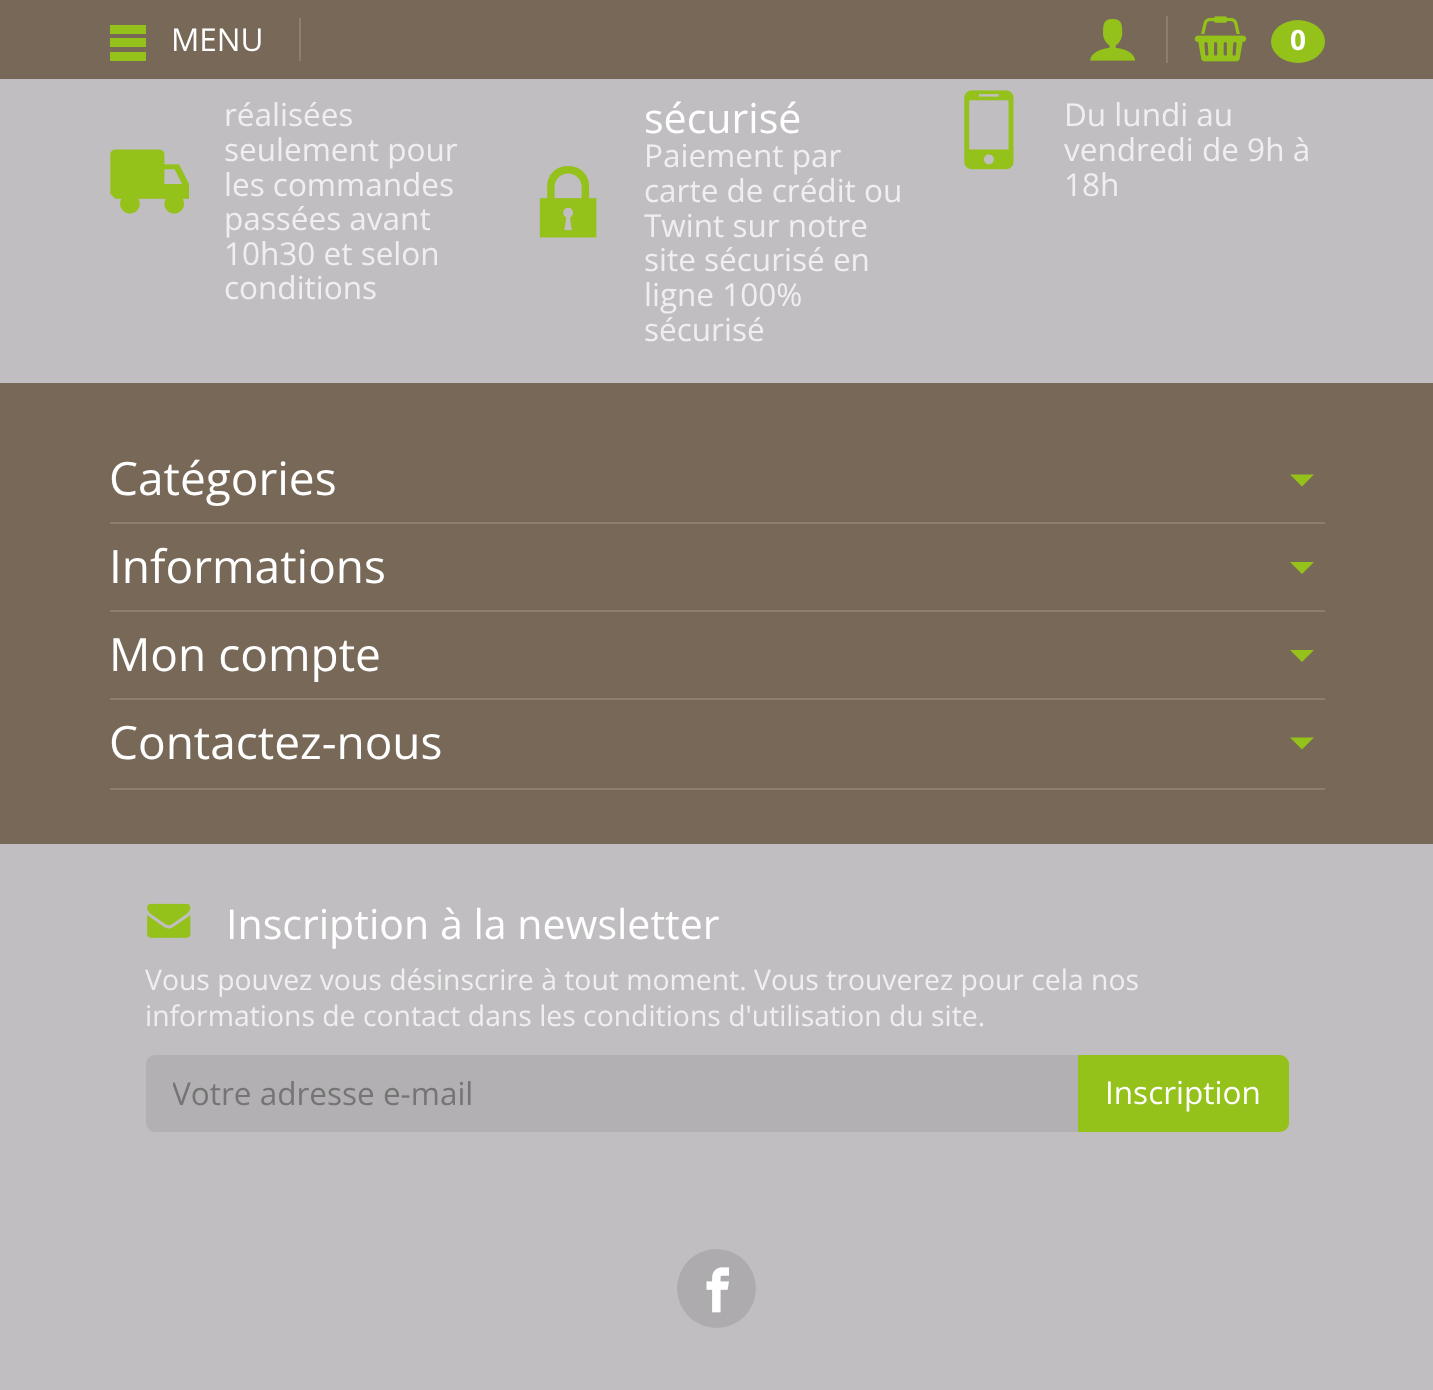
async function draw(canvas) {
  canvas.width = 1433
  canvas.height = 1390
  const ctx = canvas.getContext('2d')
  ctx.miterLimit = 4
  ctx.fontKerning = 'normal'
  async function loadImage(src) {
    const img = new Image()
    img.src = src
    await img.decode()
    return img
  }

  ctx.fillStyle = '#c1bec2'
  ctx.fillRect(0, 0, 1433, 1390)
  ctx.fillStyle = '#786857'
  ctx.fillRect(0, 0, 1433, 79)
  ctx.fillStyle = '#8c7f70'
  ctx.fillRect(299, 18, 2, 43)
  ctx.fillStyle = '#94c11a'
  ctx.beginPath()
  ctx.moveTo(110, 25)
  ctx.lineTo(110, 34)
  ctx.lineTo(146, 34)
  ctx.lineTo(146, 25)
  ctx.closePath()
  ctx.moveTo(110, 47)
  ctx.lineTo(146, 47)
  ctx.lineTo(146, 38)
  ctx.lineTo(110, 38)
  ctx.closePath()
  ctx.moveTo(110, 61)
  ctx.lineTo(146, 61)
  ctx.lineTo(146, 52)
  ctx.lineTo(110, 52)
  ctx.closePath()
  ctx.fill()
  ctx.font = '31.5px Open Sans'
  ctx.fillStyle = '#fff'
  ctx.fillText('MENU', 171, 51)
  ctx.drawImage(await loadImage('image0.png'), 1090, 19, 45, 42)
  ctx.fillStyle = '#8c7f70'
  ctx.fillRect(1166, 16, 2, 47)
  ctx.drawImage(await loadImage('image1.png'), 1194, 16, 53, 46)
  ctx.fillStyle = '#94c11a'
  ctx.beginPath()
  ctx.ellipse(1298, 41.5, 27, 21.5, 0, 0, 2 * Math.PI)
  ctx.fill()
  ctx.font = 'bold 28px Open Sans'
  ctx.fillStyle = '#fff'
  ctx.fillText('0', 1290, 50)
  ctx.drawImage(await loadImage('image2.png'), 110, 149, 79, 65)
  ctx.font = '31.5px Open Sans'
  ctx.fillStyle = '#f0eff0'
  ctx.fillText('réalisées', 224, 126)
  ctx.fillText('seulement pour', 224, 161)
  ctx.fillText('les commandes', 224, 196)
  ctx.fillText('passées avant', 224, 230)
  ctx.fillText('10h30 et selon', 224, 265)
  ctx.fillText('conditions', 224, 299)
  ctx.drawImage(await loadImage('image3.png'), 539, 166, 58, 72)
  ctx.font = '41.1px Open Sans'
  ctx.fillStyle = '#fff'
  ctx.fillText('sécurisé', 644, 133)
  ctx.font = '31.5px Open Sans'
  ctx.fillStyle = '#f0eff0'
  ctx.fillText('Paiement par', 644, 167)
  ctx.fillText('carte de crédit ou', 644, 202)
  ctx.fillText('Twint sur notre', 644, 237)
  ctx.fillText('site sécurisé en', 644, 271)
  ctx.fillText('ligne 100%', 644, 306)
  ctx.fillText('sécurisé', 644, 341)
  ctx.drawImage(await loadImage('image4.png'), 964, 90, 50, 80)
  ctx.fillText('Du lundi au', 1064, 126)
  ctx.fillText('vendredi de 9h à', 1064, 161)
  ctx.fillText('18h', 1064, 196)
  ctx.fillStyle = '#786857'
  ctx.fillRect(0, 383, 1433, 461)
  ctx.fillStyle = '#8c7f70'
  ctx.fillRect(110, 522, 1215, 2)
  ctx.font = '46px Open Sans'
  ctx.fillStyle = '#fff'
  ctx.fillText('Catégories', 109, 495)
  ctx.fillStyle = '#94c11a'
  ctx.beginPath()
  ctx.moveTo(1290, 474.5)
  ctx.lineTo(1314, 474.5)
  ctx.lineTo(1302, 486.5)
  ctx.closePath()
  ctx.fill()
  ctx.fillStyle = '#8c7f70'
  ctx.fillRect(110, 610, 1215, 2)
  ctx.fillStyle = '#fff'
  ctx.fillText('Informations', 109, 583)
  ctx.fillStyle = '#94c11a'
  ctx.beginPath()
  ctx.moveTo(1290, 562)
  ctx.lineTo(1314, 562)
  ctx.lineTo(1302, 574)
  ctx.closePath()
  ctx.fill()
  ctx.fillStyle = '#8c7f70'
  ctx.fillRect(110, 698, 1215, 2)
  ctx.fillStyle = '#fff'
  ctx.fillText('Mon compte', 109, 671)
  ctx.fillStyle = '#94c11a'
  ctx.beginPath()
  ctx.moveTo(1290, 650)
  ctx.lineTo(1314, 650)
  ctx.lineTo(1302, 662)
  ctx.closePath()
  ctx.fill()
  ctx.fillStyle = '#8c7f70'
  ctx.fillRect(110, 788, 1215, 2)
  ctx.fillStyle = '#fff'
  ctx.fillText('Contactez-nous', 109, 759)
  ctx.fillStyle = '#94c11a'
  ctx.beginPath()
  ctx.moveTo(1290, 737.5)
  ctx.lineTo(1314, 737.5)
  ctx.lineTo(1302, 749.5)
  ctx.closePath()
  ctx.fill()
  ctx.drawImage(await loadImage('image5.png'), 147, 903, 44, 35)
  ctx.font = '41.1px Open Sans'
  ctx.fillStyle = '#fff'
  ctx.fillText('Inscription à la newsletter', 226, 939)
  ctx.font = '28.35px Open Sans'
  ctx.fillStyle = '#f0eff0'
  ctx.fillText('Vous pouvez vous désinscrire à tout moment. Vous trouverez pour cela nos', 145, 990)
  ctx.fillText('informations de contact dans les conditions d\'utilisation du site.', 145, 1026)
  ctx.fillStyle = '#b3b0b3'
  ctx.beginPath()
  ctx.roundRect(146, 1055, 932, 77, [9, 0, 0, 9])
  ctx.fill()
  ctx.save()
  ctx.beginPath()
  ctx.rect(173, 1071, 878, 43)
  ctx.clip()
  ctx.font = '31.5px Open Sans'
  ctx.fillStyle = '#757575'
  ctx.fillText('Votre adresse e-mail', 172, 1105)
  ctx.restore()
  ctx.fillStyle = '#94c11a'
  ctx.beginPath()
  ctx.roundRect(1078, 1055, 211, 77, [0, 9, 9, 0])
  ctx.fill()
  ctx.font = '31.5px Open Sans'
  ctx.fillStyle = '#fff'
  ctx.fillText('Inscription', 1105, 1104)
  ctx.fillStyle = '#aeabaf'
  ctx.beginPath()
  ctx.arc(716.5, 1288.5, 39.5, 0, 2 * Math.PI)
  ctx.fill()
  ctx.drawImage(await loadImage('image6.png'), 706, 1267, 23, 46)
}

draw(document.querySelector('canvas'))
